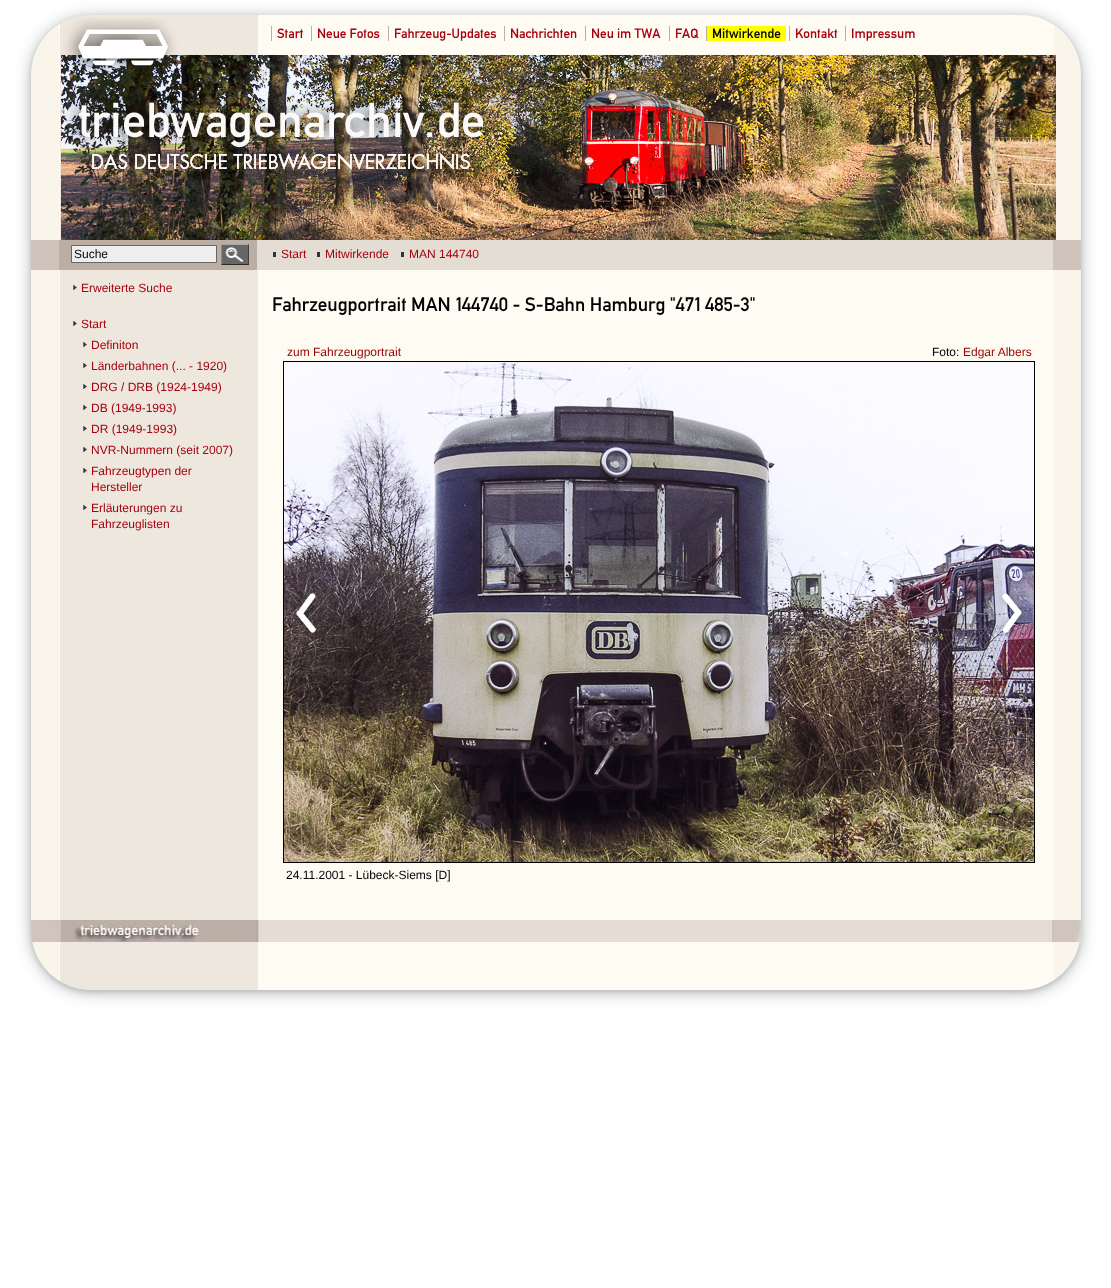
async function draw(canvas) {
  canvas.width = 1111
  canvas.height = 1288
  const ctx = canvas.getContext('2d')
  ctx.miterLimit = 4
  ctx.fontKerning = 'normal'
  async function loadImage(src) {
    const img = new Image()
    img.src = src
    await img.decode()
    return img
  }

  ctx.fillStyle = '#fff'
  ctx.fillRect(0, 0, 1111, 1288)
  ctx.fillStyle = '#0e1e2552'
  ctx.filter = 'blur(8px)'
  ctx.beginPath()
  ctx.roundRect(31, 17, 1050, 975, 60)
  ctx.fill()
  ctx.filter = 'none'
  ctx.fillStyle = '#0e1e251f'
  ctx.filter = 'blur(2px)'
  ctx.beginPath()
  ctx.roundRect(31, 17, 1050, 975, 60)
  ctx.fill()
  ctx.filter = 'none'
  ctx.drawImage(await loadImage('image0.png'), 31, 15, 1050, 975)
  ctx.drawImage(await loadImage('image1.png'), 61, 18, 995, 222)
  ctx.font = '13.25px "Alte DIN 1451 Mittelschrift"'
  ctx.fillStyle = '#a7000e'
  ctx.fillText('Start', 277, 38)
  ctx.fillStyle = '#c1ada4'
  ctx.fillRect(271, 26, 1, 15)
  ctx.fillStyle = '#a7000e'
  ctx.fillText('Neue Fotos', 317, 38)
  ctx.fillStyle = '#c1ada4'
  ctx.fillRect(311, 26, 1, 15)
  ctx.fillStyle = '#a7000e'
  ctx.fillText('Fahrzeug-Updates', 394, 38)
  ctx.fillStyle = '#c1ada4'
  ctx.fillRect(388, 26, 1, 15)
  ctx.fillStyle = '#a7000e'
  ctx.fillText('Nachrichten', 510, 38)
  ctx.fillStyle = '#c1ada4'
  ctx.fillRect(504, 26, 1, 15)
  ctx.fillStyle = '#a7000e'
  ctx.fillText('Neu im TWA', 591, 38)
  ctx.fillStyle = '#c1ada4'
  ctx.fillRect(585, 26, 1, 15)
  ctx.fillStyle = '#a7000e'
  ctx.fillText('FAQ', 675, 38)
  ctx.fillStyle = '#c1ada4'
  ctx.fillRect(669, 26, 1, 15)
  ctx.fillStyle = '#ff0'
  ctx.fillRect(707, 26, 79, 15)
  ctx.fillStyle = '#000'
  ctx.fillText('Mitwirkende', 712, 38)
  ctx.fillStyle = '#c1ada4'
  ctx.fillRect(706, 26, 1, 15)
  ctx.fillStyle = '#a7000e'
  ctx.fillText('Kontakt', 795, 38)
  ctx.fillStyle = '#c1ada4'
  ctx.fillRect(789, 26, 1, 15)
  ctx.fillStyle = '#a7000e'
  ctx.fillText('Impressum', 851, 38)
  ctx.fillStyle = '#c1ada4'
  ctx.fillRect(845, 26, 1, 15)
  ctx.drawImage(await loadImage('image2.png'), 31, 240, 1050, 30)
  ctx.fillStyle = '#eee'
  ctx.beginPath()
  ctx.rect(71.5, 245.5, 145, 17)
  ctx.fill()
  ctx.strokeStyle = '#666'
  ctx.stroke()
  ctx.font = '12px Liberation Sans'
  ctx.fillStyle = '#000'
  ctx.fillText('Suche', 74, 258)
  ctx.drawImage(await loadImage('image3.png'), 221, 244, 28, 21)
  ctx.fillStyle = '#a7000e'
  ctx.fillText('Start', 281, 258)
  ctx.fillStyle = '#333434'
  ctx.fillRect(273, 252, 3, 5)
  ctx.fillStyle = '#a7000e'
  ctx.fillText('Mitwirkende', 325, 258)
  ctx.fillStyle = '#333434'
  ctx.fillRect(317, 252, 3, 5)
  ctx.fillStyle = '#a7000e'
  ctx.fillText('MAN 144740', 409, 258)
  ctx.fillStyle = '#333434'
  ctx.fillRect(401, 252, 3, 5)
  ctx.drawImage(await loadImage('image4.png'), 73, 285, 4, 5)
  ctx.fillStyle = '#a7000e'
  ctx.fillText('Erweiterte Suche', 81, 292)
  ctx.drawImage(await loadImage('image4.png'), 73, 321, 4, 5)
  ctx.fillText('Start', 81, 328)
  ctx.drawImage(await loadImage('image5.png'), 83, 342, 4, 5)
  ctx.fillText('Definiton', 91, 349)
  ctx.drawImage(await loadImage('image5.png'), 83, 363, 4, 5)
  ctx.fillText('Länderbahnen (... - 1920)', 91, 370)
  ctx.drawImage(await loadImage('image5.png'), 83, 384, 4, 5)
  ctx.fillText('DRG / DRB (1924-1949)', 91, 391)
  ctx.drawImage(await loadImage('image5.png'), 83, 405, 4, 5)
  ctx.fillText('DB (1949-1993)', 91, 412)
  ctx.drawImage(await loadImage('image5.png'), 83, 426, 4, 5)
  ctx.fillText('DR (1949-1993)', 91, 433)
  ctx.drawImage(await loadImage('image5.png'), 83, 447, 4, 5)
  ctx.fillText('NVR-Nummern (seit 2007)', 91, 454)
  ctx.drawImage(await loadImage('image5.png'), 83, 468, 4, 5)
  ctx.fillText('Fahrzeugtypen der', 91, 475)
  ctx.fillText('Hersteller', 91, 491)
  ctx.drawImage(await loadImage('image5.png'), 83, 505, 4, 5)
  ctx.fillText('Erläuterungen zu', 91, 512)
  ctx.fillText('Fahrzeuglisten', 91, 528)
  ctx.font = '19.2px "Alte DIN 1451 Mittelschrift"'
  ctx.fillStyle = '#000'
  ctx.fillText('Fahrzeugportrait MAN 144740 - S-Bahn Hamburg "471 485-3"', 272, 311)
  ctx.font = '12px Liberation Sans'
  ctx.fillStyle = '#900'
  ctx.fillText('zum Fahrzeugportrait', 287, 356)
  ctx.fillStyle = '#000'
  ctx.fillText('Foto:', 932, 356)
  ctx.fillStyle = '#900'
  ctx.fillText('Edgar Albers', 963, 356)
  ctx.strokeStyle = '#000'
  ctx.strokeRect(283.5, 361.5, 751, 501)
  ctx.drawImage(await loadImage('image6.png'), 284, 362, 750, 500)
  ctx.drawImage(await loadImage('image7.png'), 294, 592, 23, 42)
  ctx.drawImage(await loadImage('image8.png'), 999, 590, 25, 46)
  ctx.fillStyle = '#000'
  ctx.fillText('24.11.2001 - Lübeck-Siems [D]', 286, 879)
  ctx.drawImage(await loadImage('image9.png'), 31, 920, 1050, 22)
}

draw(document.querySelector('canvas'))
